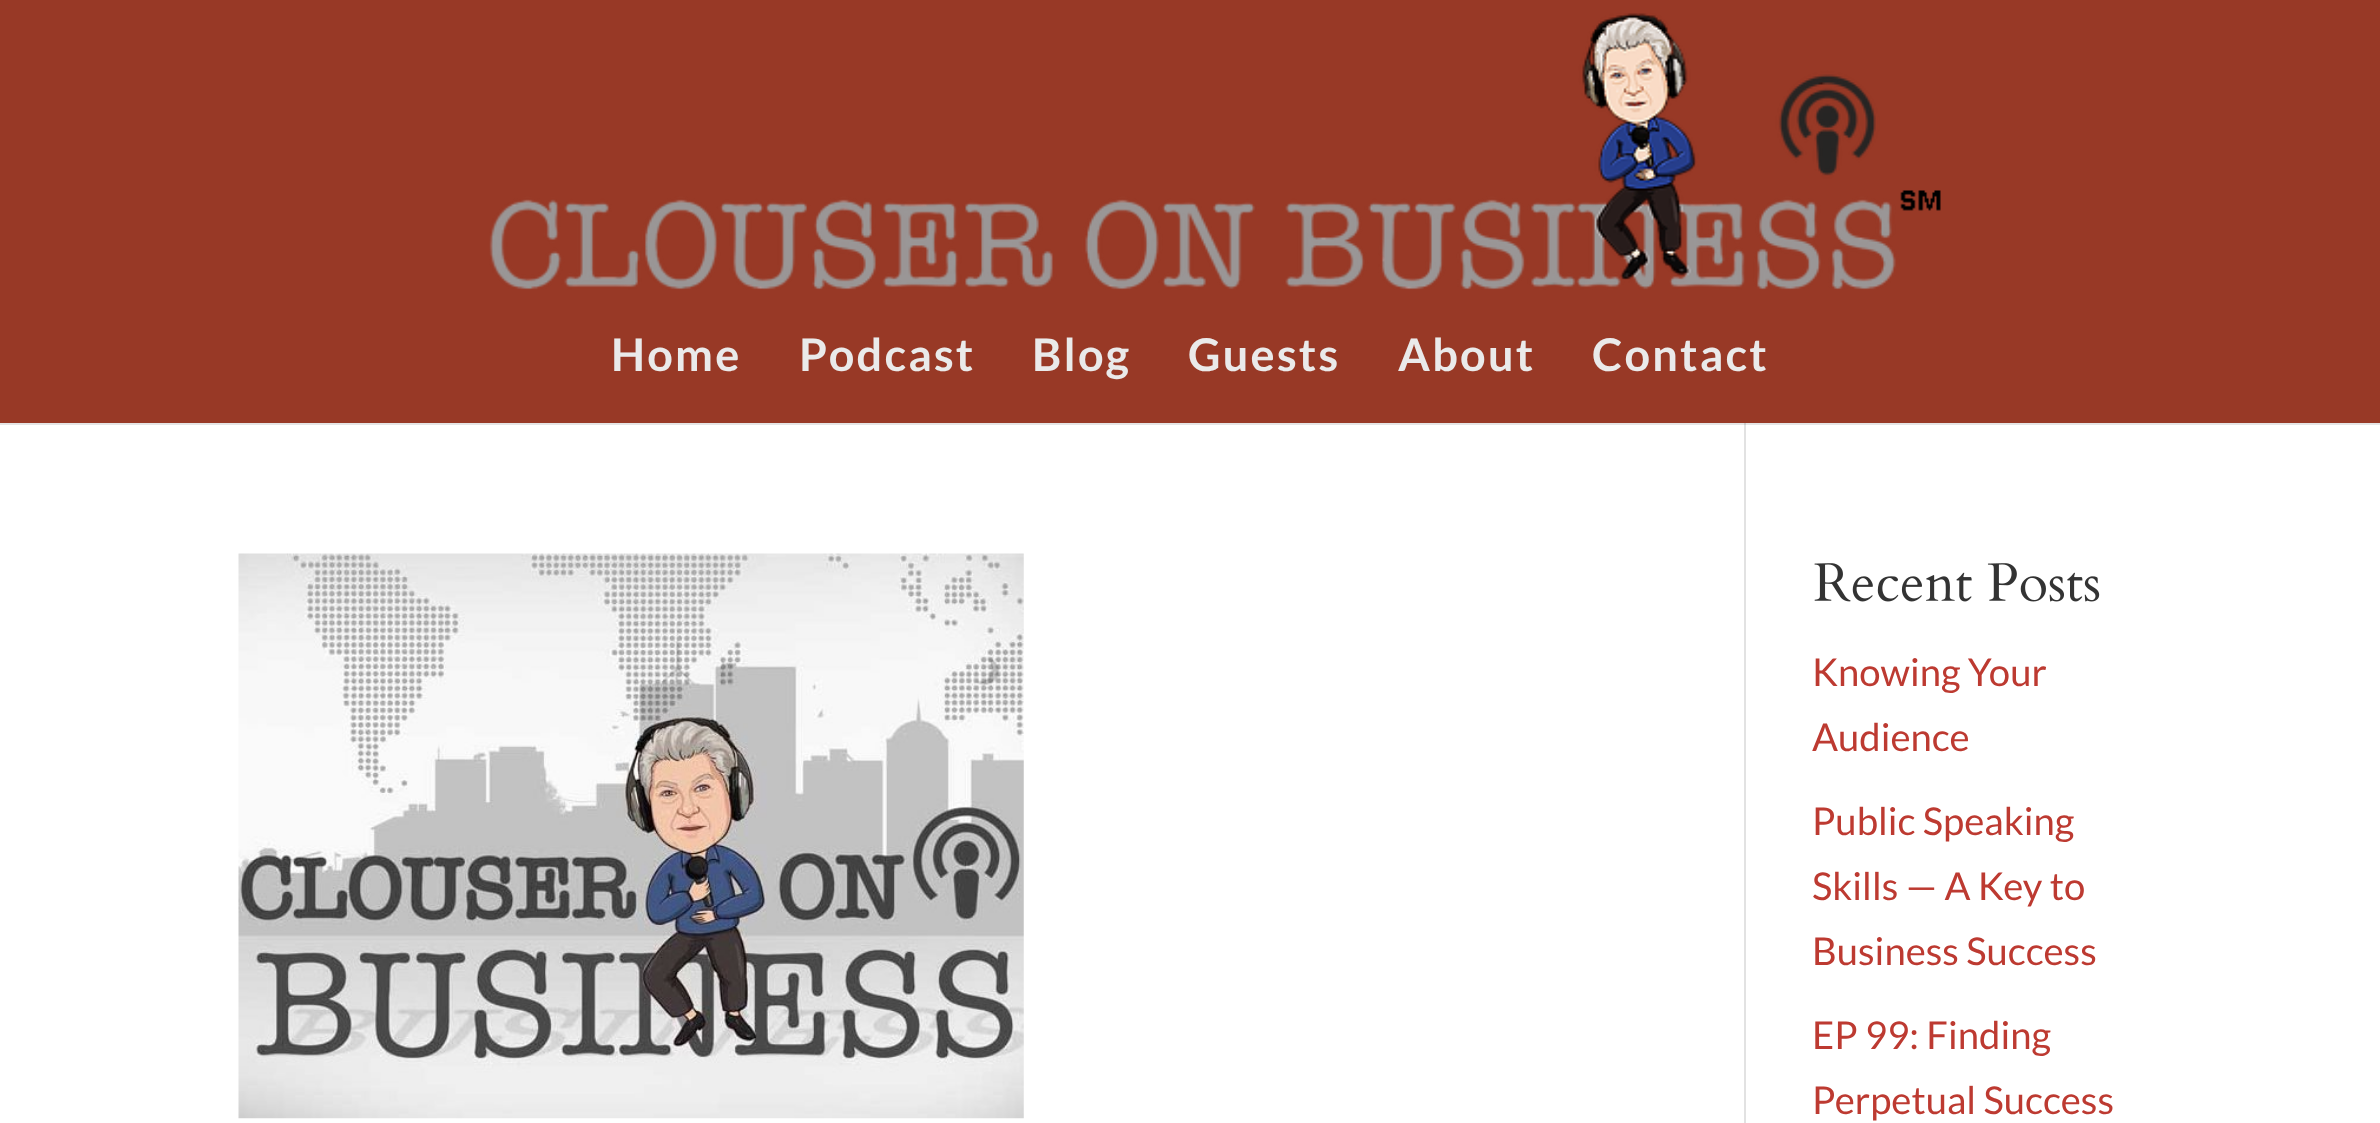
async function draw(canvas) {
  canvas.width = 2380
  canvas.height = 1123
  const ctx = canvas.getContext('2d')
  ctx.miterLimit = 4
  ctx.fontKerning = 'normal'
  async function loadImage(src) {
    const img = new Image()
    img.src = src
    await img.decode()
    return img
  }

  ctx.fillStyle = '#fff'
  ctx.fillRect(0, 0, 2380, 1123)
  ctx.fillStyle = '#e2e2e2'
  ctx.fillRect(1744, 423, 2, 700)
  ctx.fillStyle = '#0000001a'
  ctx.beginPath()
  ctx.moveTo(0, 423)
  ctx.lineTo(0, 425)
  ctx.lineTo(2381, 425)
  ctx.lineTo(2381, 2)
  ctx.lineTo(2380, 2)
  ctx.lineTo(2380, 423)
  ctx.closePath()
  ctx.fill()
  ctx.fillStyle = '#983926'
  ctx.fillRect(0, 0, 2380, 423)
  ctx.drawImage(await loadImage('image0.png'), 489, 13, 1452, 277)
  ctx.letterSpacing = '2.25px'
  ctx.font = 'bold 45px Lato'
  ctx.fillStyle = '#eaeaea'
  ctx.fillText('Home', 611, 371)
  ctx.fillText('Podcast', 799, 371)
  ctx.fillText('Blog', 1032, 371)
  ctx.fillText('Guests', 1188, 371)
  ctx.fillText('About', 1398, 371)
  ctx.fillText('Contact', 1592, 371)
  ctx.drawImage(await loadImage('image1.png'), 238, 553, 786, 566)
  ctx.drawImage(await loadImage('image2.png'), 1814, 563, 286, 39)
  ctx.letterSpacing = '0px'
  ctx.font = '38.25px Lato'
  ctx.fillStyle = '#bd3a31'
  ctx.fillText('Knowing Your', 1812, 686)
  ctx.fillText('Audience', 1812, 751)
  ctx.fillText('Public Speaking', 1812, 835)
  ctx.fillText('Skills — A Key to', 1812, 900)
  ctx.fillText('Business Success', 1812, 965)
  ctx.fillText('EP 99: Finding', 1812, 1049)
  ctx.fillText('Perpetual Success', 1812, 1114)
}

draw(document.querySelector('canvas'))
